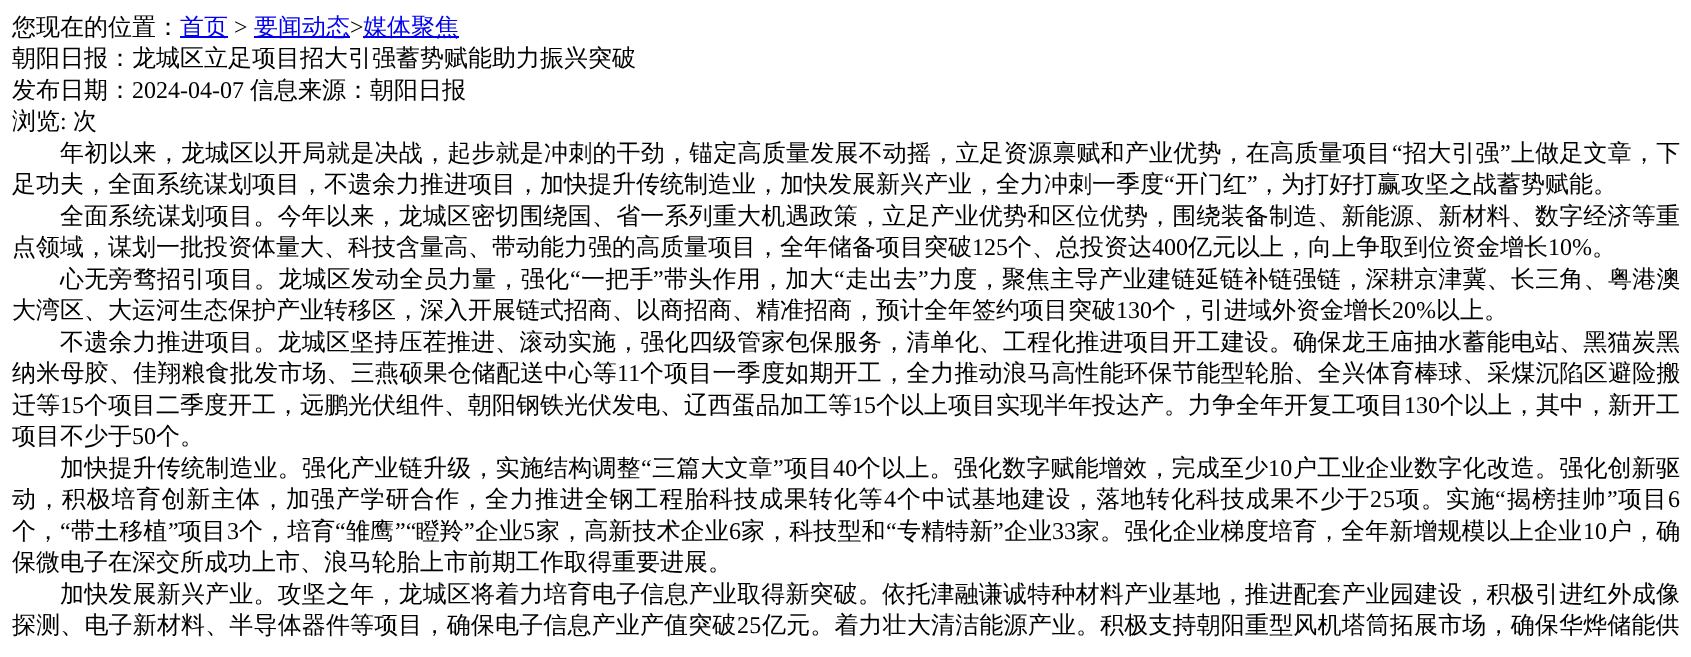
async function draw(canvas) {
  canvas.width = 1691
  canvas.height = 657
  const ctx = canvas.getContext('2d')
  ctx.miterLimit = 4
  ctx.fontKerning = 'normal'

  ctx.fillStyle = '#fff'
  ctx.fillRect(0, 0, 1691, 657)
  ctx.font = '500 24px WenQuanYi Zen Hei'
  ctx.fillStyle = '#000'
  ctx.fillText('您现在的位置：', 12, 35)
  ctx.fillStyle = '#00e'
  ctx.fillRect(180, 36, 48, 2)
  ctx.fillText('首页', 180, 35)
  ctx.font = '24px Liberation Serif'
  ctx.fillStyle = '#000'
  ctx.fillText('>', 234, 35)
  ctx.fillStyle = '#00e'
  ctx.fillRect(254, 36, 96, 2)
  ctx.font = '500 24px WenQuanYi Zen Hei'
  ctx.fillText('要闻动态', 254, 35)
  ctx.font = '24px Liberation Serif'
  ctx.fillStyle = '#000'
  ctx.fillText('>', 350, 35)
  ctx.fillStyle = '#00e'
  ctx.fillRect(363, 36, 96, 2)
  ctx.font = '500 24px WenQuanYi Zen Hei'
  ctx.fillText('媒体聚焦', 363, 35)
  ctx.fillStyle = '#000'
  ctx.fillText('朝阳日报：龙城区立足项目招大引强蓄势赋能助力振兴突破', 12, 66)
  ctx.fillText('发布日期：', 12, 98)
  ctx.font = '24px Liberation Serif'
  ctx.fillText('2024-04-07', 132, 98)
  ctx.font = '500 24px WenQuanYi Zen Hei'
  ctx.fillText('信息来源：朝阳日报', 250, 98)
  ctx.fillText('浏览', 12, 129)
  ctx.font = '24px Liberation Serif'
  ctx.fillText(':', 60, 129)
  ctx.font = '500 24px WenQuanYi Zen Hei'
  ctx.fillText('次', 73, 129)
  ctx.letterSpacing = '0.2px'
  ctx.fillText('年初以来，龙城区以开局就是决战，起步就是冲刺的干劲，锚定高质量发展不动摇，立足资源禀赋和产业优势，在高质量项目', 60, 161)
  ctx.font = '24px Liberation Serif'
  ctx.fillText('“', 1392, 161)
  ctx.font = '500 24px WenQuanYi Zen Hei'
  ctx.fillText('招大引强', 1403, 161)
  ctx.font = '24px Liberation Serif'
  ctx.fillText('”', 1500, 161)
  ctx.font = '500 24px WenQuanYi Zen Hei'
  ctx.fillText('上做足文章，下', 1511, 161)
  ctx.letterSpacing = '0px'
  ctx.fillText('足功夫，全面系统谋划项目，不遗余力推进项目，加快提升传统制造业，加快发展新兴产业，全力冲刺一季度', 12, 192)
  ctx.font = '24px Liberation Serif'
  ctx.fillText('“', 1164, 192)
  ctx.font = '500 24px WenQuanYi Zen Hei'
  ctx.fillText('开门红', 1175, 192)
  ctx.font = '24px Liberation Serif'
  ctx.fillText('”', 1247, 192)
  ctx.font = '500 24px WenQuanYi Zen Hei'
  ctx.fillText('，为打好打赢攻坚之战蓄势赋能。', 1257, 192)
  ctx.letterSpacing = '0.18px'
  ctx.fillText('全面系统谋划项目。今年以来，龙城区密切围绕国、省一系列重大机遇政策，立足产业优势和区位优势，围绕装备制造、新能源、新材料、数字经济等重', 60, 224)
  ctx.letterSpacing = '0px'
  ctx.fillText('点领域，谋划一批投资体量大、科技含量高、带动能力强的高质量项目，全年储备项目突破', 12, 255)
  ctx.font = '24px Liberation Serif'
  ctx.fillText('125', 972, 255)
  ctx.font = '500 24px WenQuanYi Zen Hei'
  ctx.fillText('个、总投资达', 1008, 255)
  ctx.font = '24px Liberation Serif'
  ctx.fillText('400', 1152, 255)
  ctx.font = '500 24px WenQuanYi Zen Hei'
  ctx.fillText('亿元以上，向上争取到位资金增长', 1188, 255)
  ctx.font = '24px Liberation Serif'
  ctx.fillText('10%', 1548, 255)
  ctx.font = '500 24px WenQuanYi Zen Hei'
  ctx.fillText('。', 1592, 255)
  ctx.letterSpacing = '0.25px'
  ctx.fillText('心无旁骛招引项目。龙城区发动全员力量，强化', 60, 287)
  ctx.font = '24px Liberation Serif'
  ctx.fillText('“', 570, 287)
  ctx.font = '500 24px WenQuanYi Zen Hei'
  ctx.fillText('一把手', 581, 287)
  ctx.font = '24px Liberation Serif'
  ctx.fillText('”', 653, 287)
  ctx.font = '500 24px WenQuanYi Zen Hei'
  ctx.fillText('带头作用，加大', 664, 287)
  ctx.font = '24px Liberation Serif'
  ctx.fillText('“', 834, 287)
  ctx.font = '500 24px WenQuanYi Zen Hei'
  ctx.fillText('走出去', 845, 287)
  ctx.font = '24px Liberation Serif'
  ctx.fillText('”', 918, 287)
  ctx.font = '500 24px WenQuanYi Zen Hei'
  ctx.fillText('力度，聚焦主导产业建链延链补链强链，深耕京津冀、长三角、粤港澳', 929, 287)
  ctx.letterSpacing = '0px'
  ctx.fillText('大湾区、大运河生态保护产业转移区，深入开展链式招商、以商招商、精准招商，预计全年签约项目突破', 12, 318)
  ctx.font = '24px Liberation Serif'
  ctx.fillText('130', 1116, 318)
  ctx.font = '500 24px WenQuanYi Zen Hei'
  ctx.fillText('个，引进域外资金增长', 1152, 318)
  ctx.font = '24px Liberation Serif'
  ctx.fillText('20%', 1392, 318)
  ctx.font = '500 24px WenQuanYi Zen Hei'
  ctx.fillText('以上。', 1436, 318)
  ctx.letterSpacing = '0.18px'
  ctx.fillText('不遗余力推进项目。龙城区坚持压茬推进、滚动实施，强化四级管家包保服务，清单化、工程化推进项目开工建设。确保龙王庙抽水蓄能电站、黑猫炭黑', 60, 350)
  ctx.letterSpacing = '0.2px'
  ctx.fillText('纳米母胶、佳翔粮食批发市场、三燕硕果仓储配送中心等', 12, 381)
  ctx.font = '24px Liberation Serif'
  ctx.fillText('11', 617, 381)
  ctx.font = '500 24px WenQuanYi Zen Hei'
  ctx.fillText('个项目一季度如期开工，全力推动浪马高性能环保节能型轮胎、全兴体育棒球、采煤沉陷区避险搬', 640, 381)
  ctx.letterSpacing = '0px'
  ctx.fillText('迁等', 12, 413)
  ctx.font = '24px Liberation Serif'
  ctx.fillText('15', 60, 413)
  ctx.font = '500 24px WenQuanYi Zen Hei'
  ctx.fillText('个项目二季度开工，远鹏光伏组件、朝阳钢铁光伏发电、辽西蛋品加工等', 84, 413)
  ctx.font = '24px Liberation Serif'
  ctx.fillText('15', 852, 413)
  ctx.font = '500 24px WenQuanYi Zen Hei'
  ctx.fillText('个以上项目实现半年投达产。力争全年开复工项目', 876, 413)
  ctx.font = '24px Liberation Serif'
  ctx.fillText('130', 1404, 413)
  ctx.font = '500 24px WenQuanYi Zen Hei'
  ctx.fillText('个以上，其中，新开工', 1440, 413)
  ctx.fillText('项目不少于', 12, 444)
  ctx.font = '24px Liberation Serif'
  ctx.fillText('50', 132, 444)
  ctx.font = '500 24px WenQuanYi Zen Hei'
  ctx.fillText('个。', 156, 444)
  ctx.letterSpacing = '0.2px'
  ctx.fillText('加快提升传统制造业。强化产业链升级，实施结构调整', 60, 476)
  ctx.font = '24px Liberation Serif'
  ctx.fillText('“', 641, 476)
  ctx.font = '500 24px WenQuanYi Zen Hei'
  ctx.fillText('三篇大文章', 652, 476)
  ctx.font = '24px Liberation Serif'
  ctx.fillText('”', 773, 476)
  ctx.font = '500 24px WenQuanYi Zen Hei'
  ctx.fillText('项目', 784, 476)
  ctx.font = '24px Liberation Serif'
  ctx.fillText('40', 833, 476)
  ctx.font = '500 24px WenQuanYi Zen Hei'
  ctx.fillText('个以上。强化数字赋能增效，完成至少', 857, 476)
  ctx.font = '24px Liberation Serif'
  ctx.fillText('10', 1268, 476)
  ctx.font = '500 24px WenQuanYi Zen Hei'
  ctx.fillText('户工业企业数字化改造。强化创新驱', 1293, 476)
  ctx.letterSpacing = '0.9px'
  ctx.fillText('动，积极培育创新主体，加强产学研合作，全力推进全钢工程胎科技成果转化等', 12, 507)
  ctx.font = '24px Liberation Serif'
  ctx.fillText('4', 884, 507)
  ctx.font = '500 24px WenQuanYi Zen Hei'
  ctx.fillText('个中试基地建设，落地转化科技成果不少于', 897, 507)
  ctx.font = '24px Liberation Serif'
  ctx.fillText('25', 1370, 507)
  ctx.font = '500 24px WenQuanYi Zen Hei'
  ctx.fillText('项。实施', 1396, 507)
  ctx.font = '24px Liberation Serif'
  ctx.fillText('“', 1495, 507)
  ctx.font = '500 24px WenQuanYi Zen Hei'
  ctx.fillText('揭榜挂帅', 1507, 507)
  ctx.font = '24px Liberation Serif'
  ctx.fillText('”', 1607, 507)
  ctx.font = '500 24px WenQuanYi Zen Hei'
  ctx.fillText('项目', 1618, 507)
  ctx.font = '24px Liberation Serif'
  ctx.fillText('6', 1668, 507)
  ctx.letterSpacing = '0.1px'
  ctx.font = '500 24px WenQuanYi Zen Hei'
  ctx.fillText('个，', 12, 539)
  ctx.font = '24px Liberation Serif'
  ctx.fillText('“', 60, 539)
  ctx.font = '500 24px WenQuanYi Zen Hei'
  ctx.fillText('带土移植', 71, 539)
  ctx.font = '24px Liberation Serif'
  ctx.fillText('”', 168, 539)
  ctx.font = '500 24px WenQuanYi Zen Hei'
  ctx.fillText('项目', 178, 539)
  ctx.font = '24px Liberation Serif'
  ctx.fillText('3', 227, 539)
  ctx.font = '500 24px WenQuanYi Zen Hei'
  ctx.fillText('个，培育', 239, 539)
  ctx.font = '24px Liberation Serif'
  ctx.fillText('“', 335, 539)
  ctx.font = '500 24px WenQuanYi Zen Hei'
  ctx.fillText('雏鹰', 346, 539)
  ctx.font = '24px Liberation Serif'
  ctx.fillText('”“', 395, 539)
  ctx.font = '500 24px WenQuanYi Zen Hei'
  ctx.fillText('瞪羚', 416, 539)
  ctx.font = '24px Liberation Serif'
  ctx.fillText('”', 464, 539)
  ctx.font = '500 24px WenQuanYi Zen Hei'
  ctx.fillText('企业', 475, 539)
  ctx.font = '24px Liberation Serif'
  ctx.fillText('5', 523, 539)
  ctx.font = '500 24px WenQuanYi Zen Hei'
  ctx.fillText('家，高新技术企业', 536, 539)
  ctx.font = '24px Liberation Serif'
  ctx.fillText('6', 729, 539)
  ctx.font = '500 24px WenQuanYi Zen Hei'
  ctx.fillText('家，科技型和', 741, 539)
  ctx.font = '24px Liberation Serif'
  ctx.fillText('“', 886, 539)
  ctx.font = '500 24px WenQuanYi Zen Hei'
  ctx.fillText('专精特新', 897, 539)
  ctx.font = '24px Liberation Serif'
  ctx.fillText('”', 993, 539)
  ctx.font = '500 24px WenQuanYi Zen Hei'
  ctx.fillText('企业', 1004, 539)
  ctx.font = '24px Liberation Serif'
  ctx.fillText('33', 1052, 539)
  ctx.font = '500 24px WenQuanYi Zen Hei'
  ctx.fillText('家。强化企业梯度培育，全年新增规模以上企业', 1076, 539)
  ctx.font = '24px Liberation Serif'
  ctx.fillText('10', 1583, 539)
  ctx.font = '500 24px WenQuanYi Zen Hei'
  ctx.fillText('户，确', 1608, 539)
  ctx.letterSpacing = '0px'
  ctx.fillText('保微电子在深交所成功上市、浪马轮胎上市前期工作取得重要进展。', 12, 570)
  ctx.letterSpacing = '0.18px'
  ctx.fillText('加快发展新兴产业。攻坚之年，龙城区将着力培育电子信息产业取得新突破。依托津融谦诚特种材料产业基地，推进配套产业园建设，积极引进红外成像', 60, 602)
  ctx.letterSpacing = '0.15px'
  ctx.fillText('探测、电子新材料、半导体器件等项目，确保电子信息产业产值突破', 12, 633)
  ctx.font = '24px Liberation Serif'
  ctx.fillText('25', 737, 633)
  ctx.font = '500 24px WenQuanYi Zen Hei'
  ctx.fillText('亿元。着力壮大清洁能源产业。积极支持朝阳重型风机塔筒拓展市场，确保华烨储能供', 762, 633)
}

draw(document.querySelector('canvas'))
